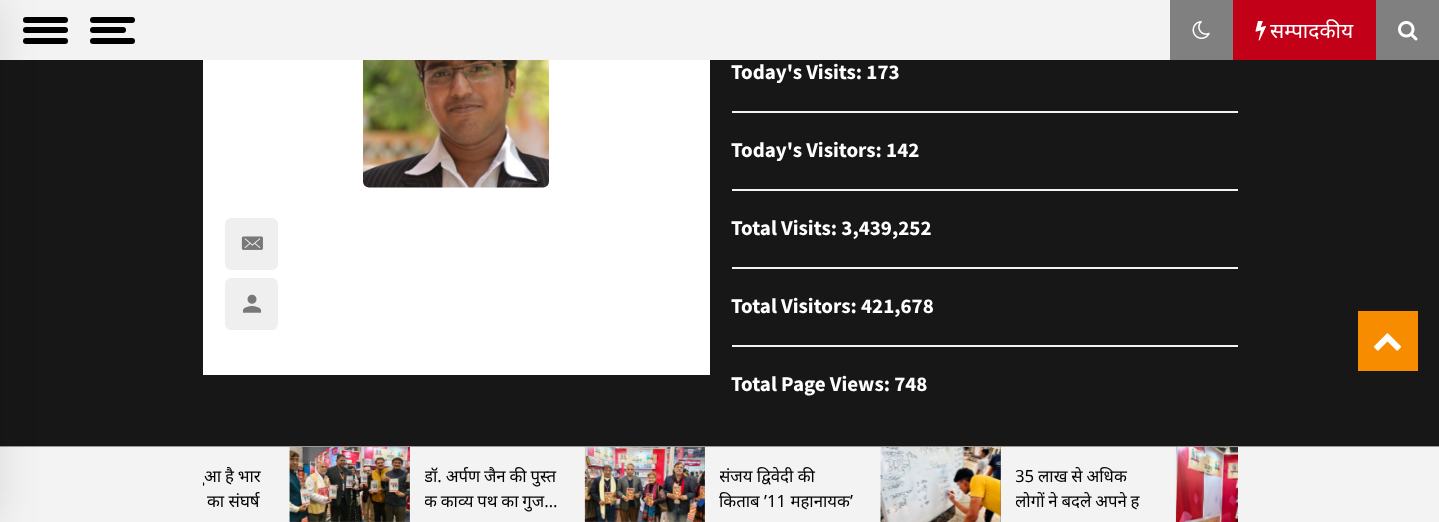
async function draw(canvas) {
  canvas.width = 1439
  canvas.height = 522
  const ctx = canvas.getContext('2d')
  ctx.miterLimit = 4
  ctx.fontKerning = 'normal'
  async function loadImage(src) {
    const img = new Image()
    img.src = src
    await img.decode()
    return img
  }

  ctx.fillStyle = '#171717'
  ctx.fillRect(0, 0, 1439, 522)
  ctx.fillStyle = '#f3f3f3'
  ctx.fillRect(0, 0, 1170, 60)
  ctx.fillStyle = '#000'
  ctx.beginPath()
  ctx.roundRect(23, 17, 45, 6, 3)
  ctx.fill()
  ctx.beginPath()
  ctx.roundRect(23, 38, 45, 6, 3)
  ctx.fill()
  ctx.beginPath()
  ctx.roundRect(23, 27, 45, 6, 3)
  ctx.fill()
  ctx.fillStyle = '#999'
  ctx.fillRect(0, 446, 1439, 1)
  ctx.fillStyle = '#f3f3f3'
  ctx.fillRect(0, 447, 1439, 75)
  ctx.fillStyle = '#0000001a'
  ctx.filter = 'blur(19px)'
  ctx.beginPath()
  ctx.rect(-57, 0, 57, 522)
  ctx.fill()
  ctx.filter = 'none'
  ctx.fillStyle = '#000'
  ctx.beginPath()
  ctx.roundRect(90, 17, 45, 6, 3)
  ctx.fill()
  ctx.beginPath()
  ctx.roundRect(90, 38, 45, 6, 3)
  ctx.fill()
  ctx.beginPath()
  ctx.roundRect(90, 27, 36, 6, 3)
  ctx.fill()
  ctx.fillStyle = '#808080'
  ctx.fillRect(1170, 0, 63, 60)
  ctx.drawImage(await loadImage('image0.png'), 1192, 21, 18, 18)
  ctx.fillStyle = '#c20017'
  ctx.fillRect(1233, 0, 143, 60)
  ctx.drawImage(await loadImage('image1.png'), 1255, 21, 11, 20)
  ctx.font = '21px Noto Sans'
  ctx.fillStyle = '#fff'
  ctx.fillText('सम्पादकीय', 1270, 38)
  ctx.fillStyle = '#808080'
  ctx.fillRect(1376, 0, 63, 60)
  ctx.drawImage(await loadImage('image2.png'), 1398, 21, 20, 20)
  ctx.fillStyle = '#fff'
  ctx.fillRect(203, 60, 507, 315)
  ctx.drawImage(await loadImage('image3.png'), 363, 60, 186, 128)
  ctx.fillStyle = '#efefef'
  ctx.beginPath()
  ctx.roundRect(225, 218, 53, 52, 6)
  ctx.fill()
  ctx.drawImage(await loadImage('image4.png'), 241, 236, 22, 14)
  ctx.beginPath()
  ctx.roundRect(225, 278, 53, 52, 6)
  ctx.fill()
  ctx.drawImage(await loadImage('image5.png'), 243, 294, 18, 19)
  ctx.fillStyle = '#f3f3f3'
  ctx.fillRect(732, 111, 506, 2)
  ctx.font = 'bold 21px Source Sans Pro'
  ctx.fillStyle = '#fff'
  ctx.fillText('Today\'s Visits: 173', 731, 79)
  ctx.fillStyle = '#f3f3f3'
  ctx.fillRect(732, 189, 506, 2)
  ctx.fillStyle = '#fff'
  ctx.fillText('Today\'s Visitors: 142', 731, 157)
  ctx.fillStyle = '#f3f3f3'
  ctx.fillRect(732, 267, 506, 2)
  ctx.fillStyle = '#fff'
  ctx.fillText('Total Visits: 3,439,252', 731, 235)
  ctx.fillStyle = '#f3f3f3'
  ctx.fillRect(732, 345, 506, 2)
  ctx.fillStyle = '#fff'
  ctx.fillText('Total Visitors: 421,678', 731, 313)
  ctx.fillText('Total Page Views: 748', 731, 391)
  ctx.save()
  ctx.beginPath()
  ctx.rect(203, 464, 64, 51)
  ctx.clip()
  ctx.wordSpacing = '-0.5px'
  ctx.font = '16.75px Noto Sans'
  ctx.fillStyle = '#000'
  ctx.fillText('ुआ है भार', 204, 482)
  ctx.restore()
  ctx.font = '16.75px Noto Sans'
  ctx.fillStyle = '#000'
  ctx.fillText('का संघर्ष', 207, 507)
  ctx.fillStyle = '#7b7b7b'
  ctx.fillRect(290, 447, 120, 75)
  ctx.drawImage(await loadImage('image6.png'), 289, 447, 121, 75)
  ctx.save()
  ctx.beginPath()
  ctx.rect(425, 464, 138, 51)
  ctx.clip()
  ctx.wordSpacing = '-0.5px'
  ctx.fillStyle = '#000'
  ctx.fillText('डॉ. अर्पण जैन की पुस्त', 424, 482)
  ctx.fillText('क काव्य पथ का गुज…', 424, 507)
  ctx.restore()
  ctx.fillRect(585, 447, 120, 75)
  ctx.drawImage(await loadImage('image7.png'), 584, 447, 121, 75)
  ctx.save()
  ctx.beginPath()
  ctx.rect(720, 464, 138, 51)
  ctx.clip()
  ctx.fillStyle = '#000'
  ctx.fillText('संजय द्विवेदी की', 719, 482)
  ctx.restore()
  ctx.fillStyle = '#000'
  ctx.fillText('किताब ’11 महानायक’', 719, 507)
  ctx.fillStyle = '#7b7b7b'
  ctx.fillRect(1000, 447, 1, 75)
  ctx.drawImage(await loadImage('image8.png'), 880, 447, 121, 75)
  ctx.save()
  ctx.beginPath()
  ctx.rect(1016, 464, 138, 51)
  ctx.clip()
  ctx.wordSpacing = '-0.5px'
  ctx.fillStyle = '#000'
  ctx.fillText('35 लाख से अधिक', 1015, 482)
  ctx.fillText('लोगों ने बदले अपने ह', 1015, 507)
  ctx.restore()
  ctx.drawImage(await loadImage('image9.png'), 1175, 447, 63, 75)
  ctx.fillStyle = '#f88c00'
  ctx.fillRect(1358, 311, 60, 60)
  ctx.drawImage(await loadImage('image10.png'), 1374, 333, 27, 18)
}

draw(document.querySelector('canvas'))
